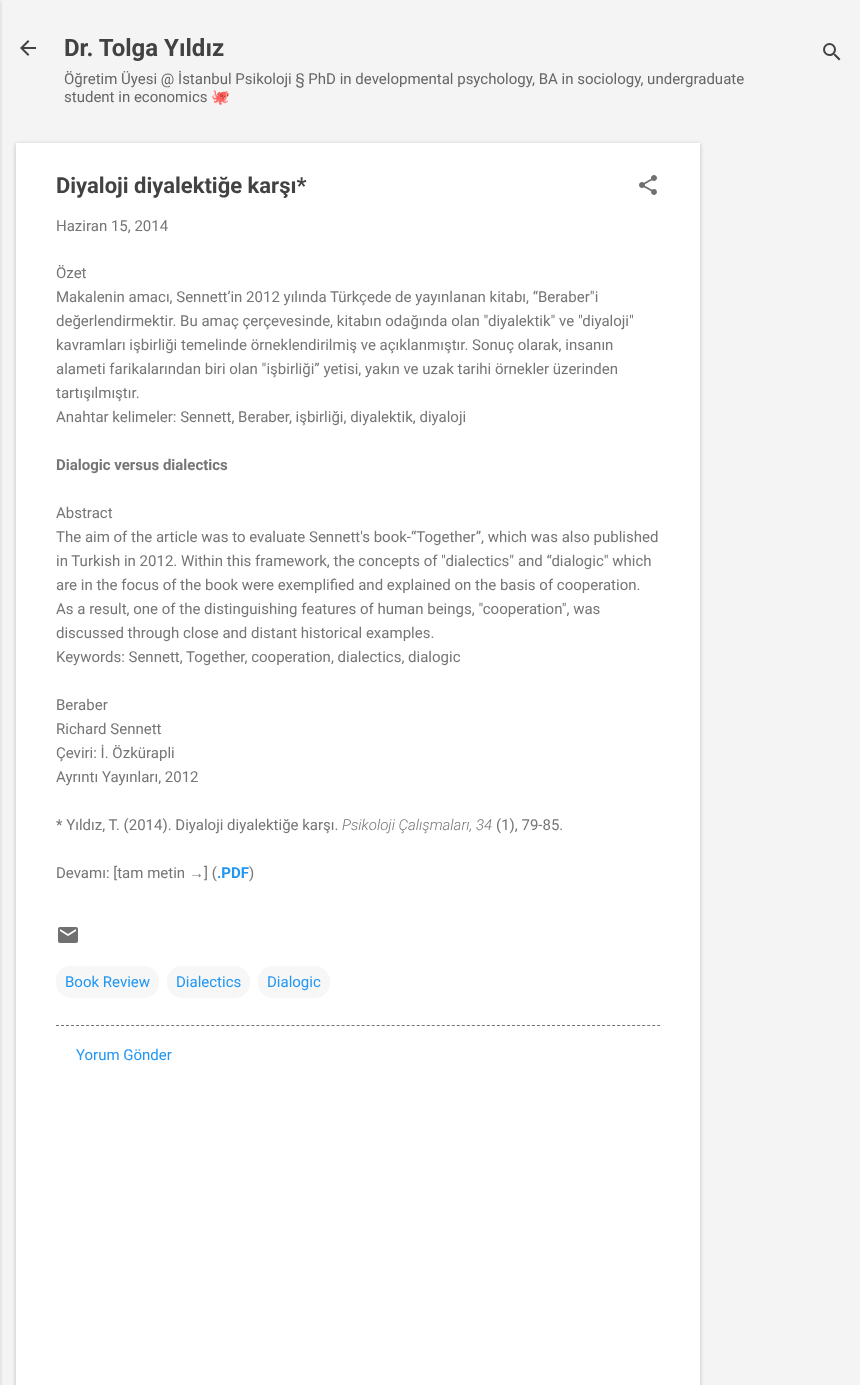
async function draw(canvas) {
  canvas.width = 860
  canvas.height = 1385
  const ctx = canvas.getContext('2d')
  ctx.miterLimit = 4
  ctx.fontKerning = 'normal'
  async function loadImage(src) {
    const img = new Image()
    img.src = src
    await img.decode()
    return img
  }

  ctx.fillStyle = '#f4f4f4'
  ctx.fillRect(0, 0, 860, 1385)
  ctx.fillStyle = '#0000001a'
  ctx.filter = 'blur(1.5px)'
  ctx.beginPath()
  ctx.rect(-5, 1, 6, 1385)
  ctx.fill()
  ctx.filter = 'none'
  ctx.drawImage(await loadImage('image0.png'), 20, 40, 16, 16)
  ctx.font = 'bold 24px Roboto'
  ctx.fillStyle = '#424242'
  ctx.fillText('Dr. Tolga Yıldız', 64, 56)
  ctx.font = '15px Roboto'
  ctx.fillStyle = '#666'
  ctx.fillText('Öğretim Üyesi @ İstanbul Psikoloji § PhD in developmental psychology, BA in sociology, undergraduate', 64, 84)
  ctx.fillText('student in economics', 64, 102)
  ctx.font = '15px Noto Color Emoji'
  ctx.fillText('🐙', 211, 102)
  ctx.drawImage(await loadImage('image1.png'), 823, 43, 18, 18)
  ctx.fillStyle = '#3c40434d'
  ctx.filter = 'blur(2px)'
  ctx.beginPath()
  ctx.rect(16, 144, 684, 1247)
  ctx.fill()
  ctx.filter = 'none'
  ctx.fillStyle = '#fff'
  ctx.fillRect(16, 143, 684, 1242)
  ctx.font = 'bold 22px Roboto'
  ctx.fillStyle = '#424242'
  ctx.fillText('Diyaloji diyalektiğe karşı*', 56, 193)
  ctx.drawImage(await loadImage('image2.png'), 639, 175, 18, 20)
  ctx.font = '15px Roboto'
  ctx.fillStyle = '#757575'
  ctx.fillText('Haziran 15, 2014', 56, 231)
  ctx.fillText('Özet', 56, 278)
  ctx.fillText('Makalenin amacı, Sennett’in 2012 yılında Türkçede de yayınlanan kitabı, “Beraber"i', 56, 302)
  ctx.fillText('değerlendirmektir. Bu amaç çerçevesinde, kitabın odağında olan "diyalektik" ve "diyaloji"', 56, 326)
  ctx.fillText('kavramları işbirliği temelinde örneklendirilmiş ve açıklanmıştır. Sonuç olarak, insanın', 56, 350)
  ctx.fillText('alameti farikalarından biri olan "işbirliği” yetisi, yakın ve uzak tarihi örnekler üzerinden', 56, 374)
  ctx.fillText('tartışılmıştır.', 56, 398)
  ctx.fillText('Anahtar kelimeler: Sennett, Beraber, işbirliği, diyalektik, diyaloji', 56, 422)
  ctx.font = 'bold 15px Roboto'
  ctx.fillText('Dialogic versus dialectics', 56, 470)
  ctx.font = '15px Roboto'
  ctx.fillText('Abstract', 56, 518)
  ctx.fillText('The aim of the article was to evaluate Sennett\'s book-“Together”, which was also published', 56, 542)
  ctx.fillText('in Turkish in 2012. Within this framework, the concepts of "dialectics" and “dialogic" which', 56, 566)
  ctx.fillText('are in the focus of the book were exemplified and explained on the basis of cooperation.', 56, 590)
  ctx.fillText('As a result, one of the distinguishing features of human beings, "cooperation", was', 56, 614)
  ctx.fillText('discussed through close and distant historical examples.', 56, 638)
  ctx.fillText('Keywords: Sennett, Together, cooperation, dialectics, dialogic', 56, 662)
  ctx.fillText('Beraber', 56, 710)
  ctx.fillText('Richard Sennett', 56, 734)
  ctx.fillText('Çeviri: İ. Özkürapli', 56, 758)
  ctx.fillText('Ayrıntı Yayınları, 2012', 56, 782)
  ctx.fillText('* Yıldız, T. (2014). Diyaloji diyalektiğe karşı.', 56, 830)
  ctx.font = 'italic 300 15px Roboto'
  ctx.fillText('Psikoloji Çalışmaları, 34', 342, 830)
  ctx.font = '15px Roboto'
  ctx.fillText('(1), 79-85.', 496, 830)
  ctx.fillText('Devamı: [tam metin', 56, 878)
  ctx.font = '15px Liberation Sans'
  ctx.fillText('→', 189, 878)
  ctx.font = '15px Roboto'
  ctx.fillText('] (', 204, 878)
  ctx.font = 'bold 15px Roboto'
  ctx.fillStyle = '#2196f3'
  ctx.fillText('.PDF', 217, 878)
  ctx.font = '15px Roboto'
  ctx.fillStyle = '#757575'
  ctx.fillText(')', 249, 878)
  ctx.drawImage(await loadImage('image3.png'), 58, 927, 20, 16)
  ctx.fillStyle = '#f7f7f7'
  ctx.beginPath()
  ctx.roundRect(56, 966, 103, 32, 15)
  ctx.fill()
  ctx.fillStyle = '#2196f3'
  ctx.fillText('Book Review', 65, 987)
  ctx.fillStyle = '#f7f7f7'
  ctx.beginPath()
  ctx.roundRect(167, 966, 83, 32, 15)
  ctx.fill()
  ctx.fillStyle = '#2196f3'
  ctx.fillText('Dialectics', 176, 987)
  ctx.fillStyle = '#f7f7f7'
  ctx.beginPath()
  ctx.roundRect(258, 966, 72, 32, 15)
  ctx.fill()
  ctx.fillStyle = '#2196f3'
  ctx.fillText('Dialogic', 267, 987)
  ctx.beginPath()
  ctx.moveTo(56, 1025.5)
  ctx.lineTo(660, 1025.5)
  ctx.strokeStyle = '#757575'
  ctx.setLineDash([3, 2.01])
  ctx.stroke()
  ctx.fillText('Yorum Gönder', 76, 1060)
}

draw(document.querySelector('canvas'))
